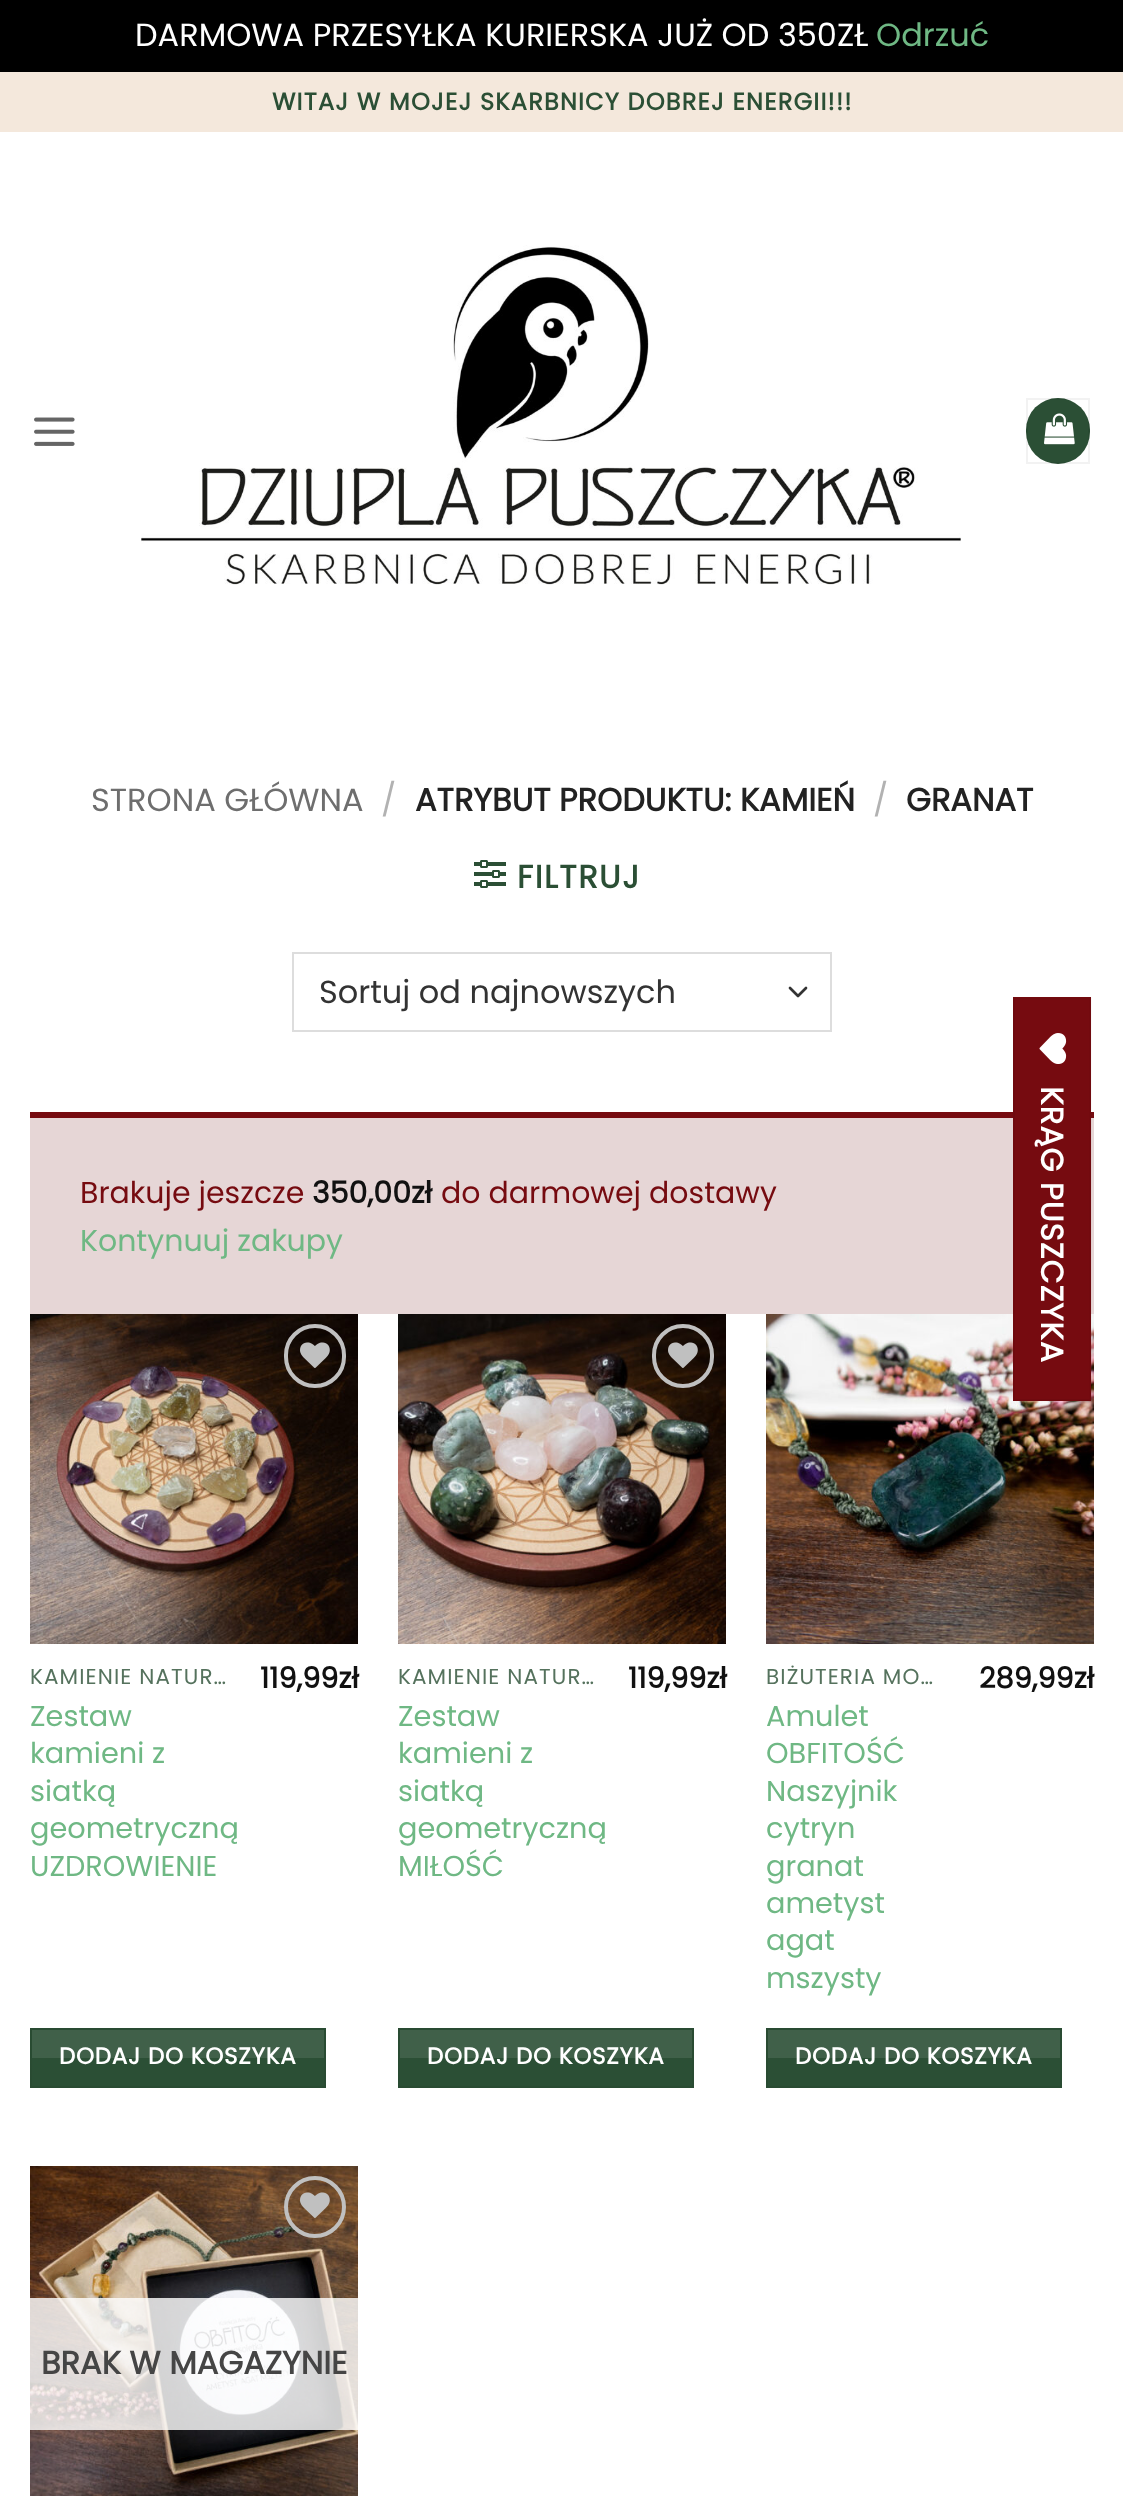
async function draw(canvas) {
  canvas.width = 1123
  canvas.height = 2507
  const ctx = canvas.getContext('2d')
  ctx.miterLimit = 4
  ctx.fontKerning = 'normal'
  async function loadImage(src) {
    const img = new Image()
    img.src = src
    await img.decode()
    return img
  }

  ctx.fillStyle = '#000'
  ctx.fillRect(0, 0, 1123, 2507)
  ctx.font = '32px Poppins'
  ctx.fillStyle = '#fff'
  ctx.fillText('DARMOWA PRZESYŁKA KURIERSKA JUŻ OD 350ZŁ', 135, 46)
  ctx.fillStyle = '#6fb884'
  ctx.fillText('Odrzuć', 876, 46)
  ctx.fillStyle = '#fff'
  ctx.fillRect(0, 132, 1123, 2375)
  ctx.fillStyle = '#f4e8dc'
  ctx.fillRect(0, 72, 1123, 60)
  ctx.letterSpacing = '1.2px'
  ctx.font = 'bold 24px Poppins'
  ctx.fillStyle = '#2b4f35'
  ctx.fillText('WITAJ W MOJEJ SKARBNICY DOBREJ ENERGII!!!', 272, 110)
  ctx.drawImage(await loadImage('image0.png'), 34, 417, 41, 29)
  ctx.drawImage(await loadImage('image1.png'), 141, 245, 820, 340)
  ctx.beginPath()
  ctx.roundRect(1026, 398, 64, 66, 32)
  ctx.fill()
  ctx.strokeStyle = '#0000000d'
  ctx.lineWidth = 2
  ctx.strokeRect(1027, 399, 62, 64)
  ctx.drawImage(await loadImage('image2.png'), 1044, 413, 31, 32)
  ctx.letterSpacing = '0px'
  ctx.font = '32px Poppins'
  ctx.fillStyle = '#6e6e6e'
  ctx.fillText('STRONA GŁÓWNA', 91, 811)
  ctx.fillStyle = '#b2b2b2'
  ctx.fillText('/', 381, 811)
  ctx.font = 'bold 32px Poppins'
  ctx.fillStyle = '#222'
  ctx.fillText('ATRYBUT PRODUKTU: KAMIEŃ', 415, 811)
  ctx.font = '32px Poppins'
  ctx.fillStyle = '#b2b2b2'
  ctx.fillText('/', 873, 811)
  ctx.font = 'bold 32px Poppins'
  ctx.fillStyle = '#222'
  ctx.fillText('GRANAT', 906, 811)
  ctx.drawImage(await loadImage('image3.png'), 474, 860, 32, 28)
  ctx.letterSpacing = '1.5px'
  ctx.fillStyle = '#2b4f35'
  ctx.fillText('FILTRUJ', 517, 888)
  ctx.beginPath()
  ctx.moveTo(790, 988)
  ctx.lineTo(798, 996)
  ctx.lineTo(806, 988)
  ctx.strokeStyle = '#333'
  ctx.lineWidth = 2.7
  ctx.lineCap = 'round'
  ctx.lineJoin = 'round'
  ctx.stroke()
  ctx.strokeStyle = '#ddd'
  ctx.lineWidth = 2
  ctx.lineJoin = 'miter'
  ctx.strokeRect(293, 953, 538, 78)
  ctx.letterSpacing = '0px'
  ctx.font = '32px Poppins'
  ctx.fillStyle = '#333'
  ctx.fillText('Sortuj od najnowszych', 319, 1003)
  ctx.fillStyle = '#e6d6d6'
  ctx.fillRect(30, 1118, 1064, 196)
  ctx.fillStyle = '#760b10'
  ctx.fillRect(30, 1112, 1064, 6)
  ctx.font = '30px Poppins'
  ctx.fillText('Brakuje jeszcze', 80, 1203)
  ctx.font = 'bold 30px Poppins'
  ctx.fillStyle = '#111'
  ctx.fillText('350,00zł', 312, 1203)
  ctx.font = '30px Poppins'
  ctx.fillStyle = '#760b10'
  ctx.fillText('do darmowej dostawy', 441, 1203)
  ctx.fillStyle = '#6fb884'
  ctx.fillText('Kontynuuj zakupy', 80, 1251)
  ctx.drawImage(await loadImage('image4.png'), 30, 1314, 328, 330)
  ctx.beginPath()
  ctx.roundRect(286, 1326, 58, 60, 29)
  ctx.strokeStyle = '#c0c0c0'
  ctx.lineWidth = 4
  ctx.stroke()
  ctx.drawImage(await loadImage('image5.png'), 300, 1342, 30, 26)
  ctx.letterSpacing = '1.1px'
  ctx.font = '21.5px Poppins'
  ctx.fillStyle = '#55725d'
  ctx.fillText('KAMIENIE NATUR…', 30, 1684)
  ctx.letterSpacing = '0px'
  ctx.font = '28.75px Poppins'
  ctx.fillStyle = '#6fb884'
  ctx.fillText('Zestaw', 30, 1726)
  ctx.fillText('kamieni z', 30, 1763)
  ctx.fillText('siatką', 30, 1801)
  ctx.fillText('geometryczną', 30, 1838)
  ctx.fillText('UZDROWIENIE', 30, 1876)
  ctx.font = 'bold 28.75px Poppins'
  ctx.fillStyle = '#111'
  ctx.fillText('119,99zł', 260, 1688)
  ctx.fillStyle = '#2b4f35'
  ctx.beginPath()
  ctx.rect(31, 2029, 294, 58)
  ctx.fill()
  ctx.strokeStyle = '#294b32'
  ctx.lineWidth = 2
  ctx.stroke()
  ctx.fillStyle = '#ffffff1a'
  ctx.fillRect(32, 2030, 292, 28)
  ctx.letterSpacing = '0.75px'
  ctx.font = 'bold 23px Poppins'
  ctx.fillStyle = '#fff'
  ctx.fillText('DODAJ DO KOSZYKA', 59, 2064)
  ctx.drawImage(await loadImage('image6.png'), 398, 1314, 328, 330)
  ctx.beginPath()
  ctx.roundRect(654, 1326, 58, 60, 29)
  ctx.strokeStyle = '#c0c0c0'
  ctx.lineWidth = 4
  ctx.stroke()
  ctx.drawImage(await loadImage('image7.png'), 668, 1342, 30, 26)
  ctx.letterSpacing = '1.1px'
  ctx.font = '21.5px Poppins'
  ctx.fillStyle = '#55725d'
  ctx.fillText('KAMIENIE NATUR…', 398, 1684)
  ctx.letterSpacing = '0px'
  ctx.font = '28.75px Poppins'
  ctx.fillStyle = '#6fb884'
  ctx.fillText('Zestaw', 398, 1726)
  ctx.fillText('kamieni z', 398, 1763)
  ctx.fillText('siatką', 398, 1801)
  ctx.fillText('geometryczną', 398, 1838)
  ctx.fillText('MIŁOŚĆ', 398, 1876)
  ctx.font = 'bold 28.75px Poppins'
  ctx.fillStyle = '#111'
  ctx.fillText('119,99zł', 628, 1688)
  ctx.fillStyle = '#2b4f35'
  ctx.beginPath()
  ctx.rect(399, 2029, 294, 58)
  ctx.fill()
  ctx.strokeStyle = '#294b32'
  ctx.lineWidth = 2
  ctx.stroke()
  ctx.fillStyle = '#ffffff1a'
  ctx.fillRect(400, 2030, 292, 28)
  ctx.letterSpacing = '0.75px'
  ctx.font = 'bold 23px Poppins'
  ctx.fillStyle = '#fff'
  ctx.fillText('DODAJ DO KOSZYKA', 427, 2064)
  ctx.drawImage(await loadImage('image8.png'), 766, 1314, 328, 330)
  ctx.letterSpacing = '1.1px'
  ctx.font = '21.5px Poppins'
  ctx.fillStyle = '#55725d'
  ctx.fillText('BIŻUTERIA MO…', 766, 1684)
  ctx.letterSpacing = '0px'
  ctx.font = '28.75px Poppins'
  ctx.fillStyle = '#6fb884'
  ctx.fillText('Amulet', 766, 1726)
  ctx.fillText('OBFITOŚĆ', 766, 1763)
  ctx.fillText('Naszyjnik', 766, 1801)
  ctx.fillText('cytryn', 766, 1838)
  ctx.fillText('granat', 766, 1876)
  ctx.fillText('ametyst', 766, 1913)
  ctx.fillText('agat', 766, 1950)
  ctx.fillText('mszysty', 766, 1988)
  ctx.font = 'bold 28.75px Poppins'
  ctx.fillStyle = '#111'
  ctx.fillText('289,99zł', 979, 1688)
  ctx.fillStyle = '#2b4f35'
  ctx.beginPath()
  ctx.rect(767, 2029, 294, 58)
  ctx.fill()
  ctx.stroke()
  ctx.fillStyle = '#ffffff1a'
  ctx.fillRect(768, 2030, 292, 28)
  ctx.letterSpacing = '0.75px'
  ctx.font = 'bold 23px Poppins'
  ctx.fillStyle = '#fff'
  ctx.fillText('DODAJ DO KOSZYKA', 795, 2064)
  ctx.drawImage(await loadImage('image9.png'), 30, 2166, 328, 330)
  ctx.beginPath()
  ctx.arc(315, 2207, 29, 0, 2 * Math.PI)
  ctx.strokeStyle = '#c0c0c0'
  ctx.lineWidth = 4
  ctx.stroke()
  ctx.drawImage(await loadImage('image10.png'), 300, 2192, 30, 26)
  ctx.fillStyle = '#ffffffcf'
  ctx.fillRect(30, 2298, 328, 132)
  ctx.letterSpacing = '0px'
  ctx.font = 'bold 32px Poppins'
  ctx.fillStyle = '#454545'
  ctx.fillText('BRAK W MAGAZYNIE', 41, 2374)
  ctx.fillStyle = '#760b10'
  ctx.fillRect(1013, 997, 78, 404)
  ctx.beginPath()
  ctx.moveTo(1090.5, 998.5)
  ctx.lineTo(1090.5, 1400)
  ctx.lineTo(1014, 1400)
  ctx.lineTo(1014, 998.5)
  ctx.closePath()
  ctx.strokeStyle = '#0000000d'
  ctx.lineWidth = 2
  ctx.lineCap = 'butt'
  ctx.stroke()
  ctx.drawImage(await loadImage('image11.png'), 1039, 1033, 28, 31)
  ctx.letterSpacing = '1px'
  ctx.font = 'bold 31px Poppins'
  ctx.fillStyle = '#fff'
  ctx.save()
  ctx.translate(1041, 1086)
  ctx.rotate(90 * Math.PI / 180)
  ctx.fillText('KRĄG PUSZCZYKA', 0, 0)
  ctx.restore()
}

draw(document.querySelector('canvas'))
